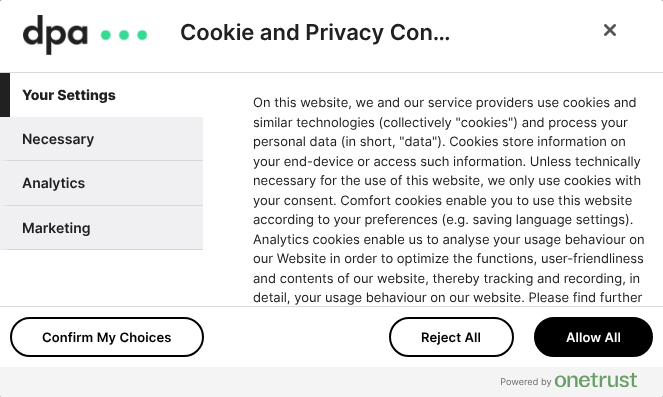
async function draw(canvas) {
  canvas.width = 663
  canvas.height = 397
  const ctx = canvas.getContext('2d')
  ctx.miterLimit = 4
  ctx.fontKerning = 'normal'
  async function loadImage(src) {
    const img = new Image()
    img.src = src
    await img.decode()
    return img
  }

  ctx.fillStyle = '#808080'
  ctx.fillRect(0, 0, 663, 397)
  ctx.fillStyle = '#fff'
  ctx.beginPath()
  ctx.roundRect(0, 0, 663, 397, 2)
  ctx.fill()
  ctx.fillStyle = '#d8d8d8'
  ctx.fillRect(0, 72, 663, 1)
  ctx.drawImage(await loadImage('image0.png'), 23, 15, 124, 40)
  ctx.font = '600 22px Inter'
  ctx.fillStyle = '#212121'
  ctx.fillText('Cookie and Privacy Con…', 180, 40)
  ctx.drawImage(await loadImage('image1.png'), 604, 24, 12, 12)
  ctx.fillRect(0, 73, 10, 44)
  ctx.font = '800 14px Inter'
  ctx.fillText('Your Settings', 22, 100)
  ctx.fillStyle = '#f0f0f3'
  ctx.fillRect(0, 117, 203, 133)
  ctx.fillStyle = '#d7d7d7'
  ctx.beginPath()
  ctx.moveTo(203, 161)
  ctx.lineTo(0, 161)
  ctx.lineTo(10, 160)
  ctx.lineTo(203, 160)
  ctx.closePath()
  ctx.fill()
  ctx.font = '600 14px Inter'
  ctx.fillStyle = '#212121'
  ctx.fillText('Necessary', 22, 144)
  ctx.fillStyle = '#d7d7d7'
  ctx.beginPath()
  ctx.moveTo(203, 206)
  ctx.lineTo(0, 206)
  ctx.lineTo(10, 205)
  ctx.lineTo(203, 205)
  ctx.closePath()
  ctx.fill()
  ctx.fillStyle = '#212121'
  ctx.fillText('Analytics', 22, 188)
  ctx.fillStyle = '#d7d7d7'
  ctx.beginPath()
  ctx.moveTo(203, 250)
  ctx.lineTo(0, 250)
  ctx.lineTo(10, 249)
  ctx.lineTo(203, 249)
  ctx.closePath()
  ctx.fill()
  ctx.fillStyle = '#212121'
  ctx.fillText('Marketing', 22, 233)
  ctx.font = '13px Inter'
  ctx.fillText('On this website, we and our service providers use cookies and', 253, 107)
  ctx.fillText('similar technologies (collectively "cookies") and process your', 253, 127)
  ctx.fillText('personal data (in short, "data"). Cookies store information on', 253, 146)
  ctx.fillText('your end-device or access such information. Unless technically', 253, 166)
  ctx.fillText('necessary for the use of this website, we only use cookies with', 253, 185)
  ctx.fillText('your consent. Comfort cookies enable you to use this website', 253, 205)
  ctx.fillText('according to your preferences (e.g. saving language settings).', 253, 224)
  ctx.fillText('Analytics cookies enable us to analyse your usage behaviour on', 253, 244)
  ctx.fillText('our Website in order to optimize the functions, user-friendliness', 253, 263)
  ctx.fillText('and contents of our website, thereby tracking and recording, in', 253, 283)
  ctx.fillText('detail, your usage behaviour on our website. Please find further', 253, 302)
  ctx.fillStyle = '#d8d8d8'
  ctx.fillRect(0, 306, 663, 1)
  ctx.beginPath()
  ctx.roundRect(11, 318, 192, 38, 19)
  ctx.strokeStyle = '#000'
  ctx.lineWidth = 2
  ctx.stroke()
  ctx.letterSpacing = '0.1px'
  ctx.font = '600 13px Inter'
  ctx.fillStyle = '#000'
  ctx.fillText('Confirm My Choices', 42, 342)
  ctx.beginPath()
  ctx.roundRect(390, 318, 123, 38, 19)
  ctx.stroke()
  ctx.fillText('Reject All', 421, 342)
  ctx.beginPath()
  ctx.roundRect(535, 318, 117, 38, 19)
  ctx.fill()
  ctx.stroke()
  ctx.fillStyle = '#fff'
  ctx.fillText('Allow All', 566, 342)
  ctx.fillStyle = '#f4f4f4'
  ctx.beginPath()
  ctx.roundRect(0, 367, 663, 30, [0, 0, 2, 2])
  ctx.fill()
  ctx.drawImage(await loadImage('image2.png'), 501, 372, 136, 16)
}

draw(document.querySelector('canvas'))
